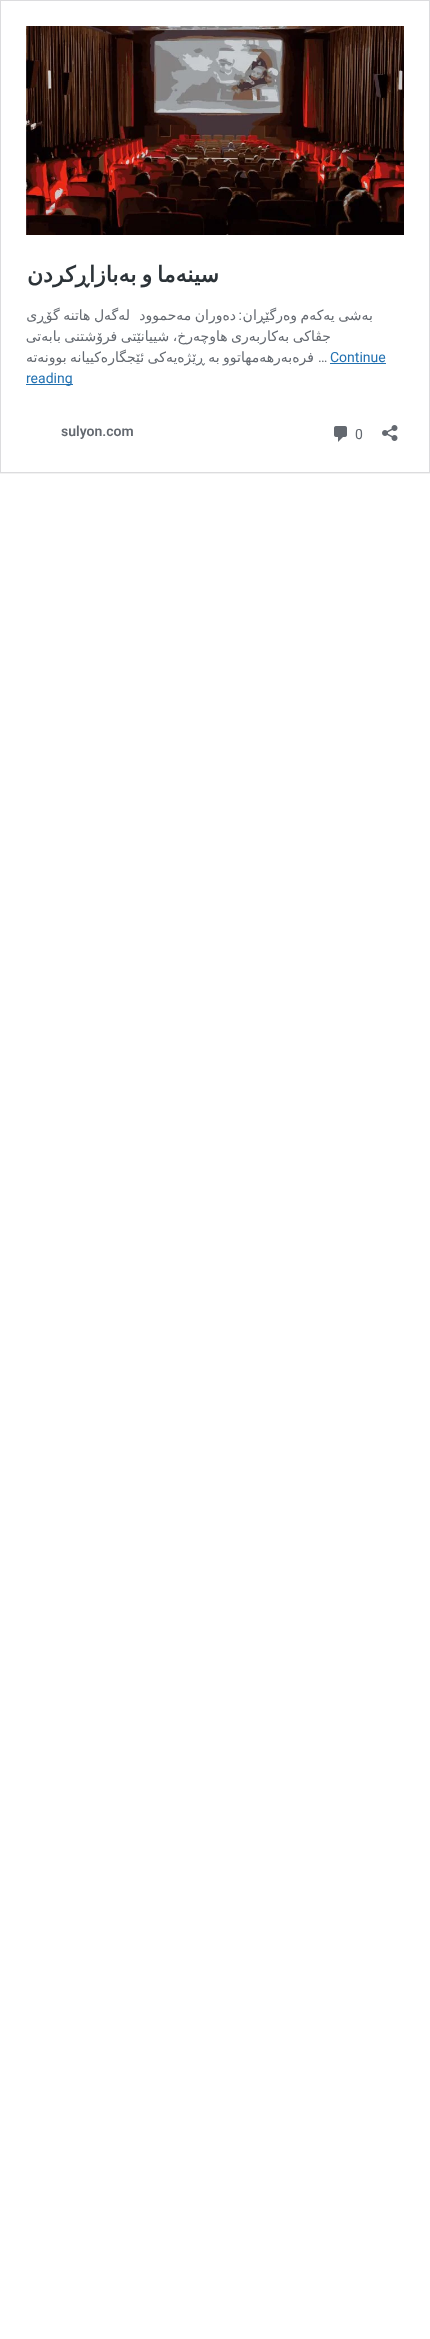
async function draw(canvas) {
  canvas.width = 430
  canvas.height = 2339
  const ctx = canvas.getContext('2d')
  ctx.miterLimit = 4
  ctx.fontKerning = 'normal'
  async function loadImage(src) {
    const img = new Image()
    img.src = src
    await img.decode()
    return img
  }

  ctx.fillStyle = '#fff'
  ctx.fillRect(0, 0, 430, 2339)
  ctx.save()
  ctx.beginPath()
  ctx.rect(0, 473, 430, 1)
  ctx.clip()
  ctx.fillStyle = '#0000000d'
  ctx.filter = 'blur(0.5px)'
  ctx.beginPath()
  ctx.rect(0, 1, 430, 473)
  ctx.fill()
  ctx.filter = 'none'
  ctx.restore()
  ctx.strokeStyle = '#dcdcde'
  ctx.strokeRect(0.5, 0.5, 429, 472)
  ctx.drawImage(await loadImage('image0.png'), 26, 26, 378, 209)
  ctx.wordSpacing = '-2px'
  ctx.direction = 'rtl'
  ctx.font = 'bold 22px DejaVu Sans'
  ctx.fillStyle = '#2c3338'
  ctx.fillText('سینه‌ما و به‌بازاڕكردن', 219, 282)
  ctx.wordSpacing = '-1px'
  ctx.font = '14px DejaVu Sans'
  ctx.fillStyle = '#646970'
  ctx.fillText('بەشی یەکەم وه‌رگێڕان', 373, 320)
  ctx.wordSpacing = '0px'
  ctx.font = '14px Roboto'
  ctx.fillText(':', 242, 320)
  ctx.wordSpacing = '-1px'
  ctx.font = '14px DejaVu Sans'
  ctx.fillText('ده‌وران مه‌حموود', 236, 320)
  ctx.fillText('له‌گه‌ل هاتنه‌ گۆڕی', 130, 320)
  ctx.fillText('جڤاكی به‌كاربه‌ری هاوچه‌رخ، شییانێتی فرۆشتنی بابه‌تی', 331, 341)
  ctx.wordSpacing = '0px'
  ctx.direction = 'ltr'
  ctx.font = '14px Roboto'
  ctx.fillStyle = '#2271b1'
  ctx.fillText('Continue', 330, 362)
  ctx.fillRect(330, 363, 56, 1)
  ctx.fillStyle = '#646970'
  ctx.fillText('…', 318, 362)
  ctx.wordSpacing = '-1px'
  ctx.direction = 'rtl'
  ctx.font = '14px DejaVu Sans'
  ctx.fillText('فره‌به‌رهه‌مهاتوو به‌ ڕێژه‌یه‌كی ئێجگاره‌كییانه‌ بوونه‌ته', 314, 362)
  ctx.fillStyle = '#2271b1'
  ctx.fillRect(26, 384, 47, 1)
  ctx.wordSpacing = '0px'
  ctx.direction = 'ltr'
  ctx.font = '14px Roboto'
  ctx.fillText('reading', 26, 383)
  ctx.drawImage(await loadImage('image1.png'), 382, 425, 16, 16)
  ctx.fillStyle = '#646970'
  ctx.fillText('0', 355, 439)
  ctx.drawImage(await loadImage('image2.png'), 334, 426, 13, 16)
  ctx.font = '600 14px Roboto'
  ctx.fillText('sulyon.com', 61, 436)
}

draw(document.querySelector('canvas'))
